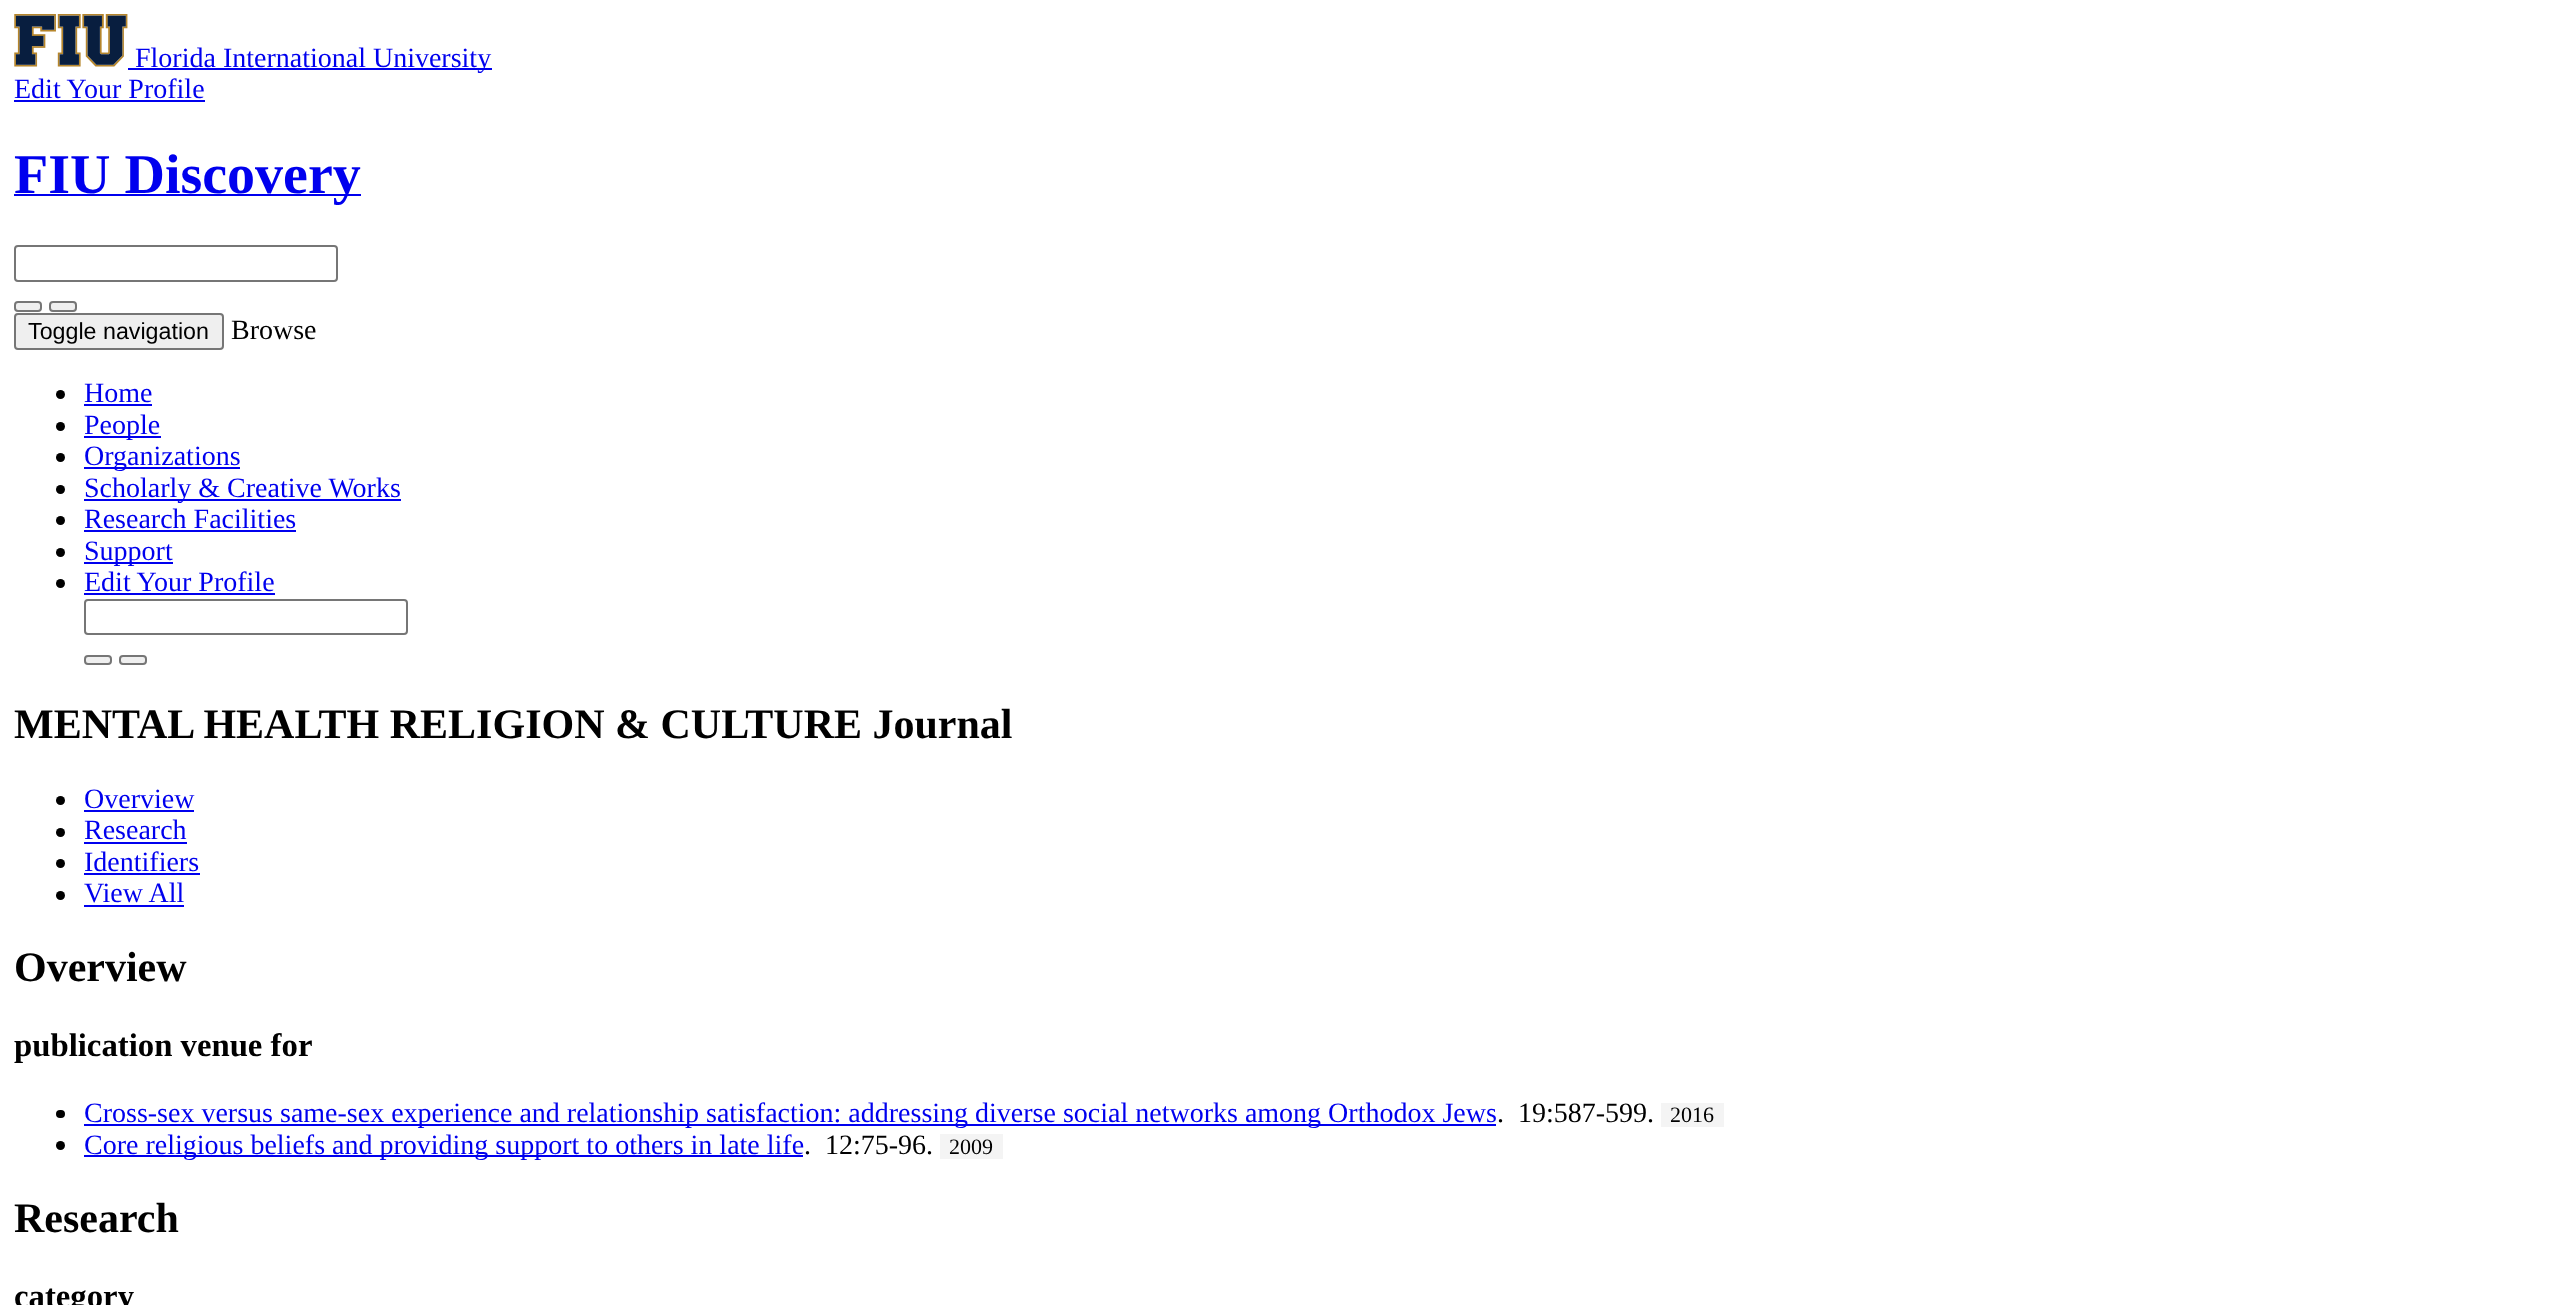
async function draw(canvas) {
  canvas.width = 2560
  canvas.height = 1305
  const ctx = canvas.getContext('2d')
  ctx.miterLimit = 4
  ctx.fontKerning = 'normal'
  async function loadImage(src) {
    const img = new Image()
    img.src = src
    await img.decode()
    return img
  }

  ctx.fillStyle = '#fff'
  ctx.fillRect(0, 0, 2560, 1305)
  ctx.drawImage(await loadImage('image0.png'), 14, 14, 114, 53)
  ctx.fillStyle = '#00e'
  ctx.fillRect(128, 68, 364, 2)
  ctx.font = '28px Liberation Serif'
  ctx.fillText('Florida International University', 135, 67)
  ctx.fillText('Edit Your Profile', 14, 98)
  ctx.fillRect(14, 100, 191, 2)
  ctx.fillRect(14, 194, 347, 2)
  ctx.font = 'bold 56px Liberation Serif'
  ctx.fillText('FIU Discovery', 14, 193)
  ctx.beginPath()
  ctx.roundRect(15, 246, 322, 35, 3)
  ctx.strokeStyle = '#767676'
  ctx.lineWidth = 2
  ctx.stroke()
  ctx.fillStyle = '#efefef'
  ctx.beginPath()
  ctx.roundRect(15, 302, 26, 9, 3)
  ctx.fill()
  ctx.stroke()
  ctx.beginPath()
  ctx.roundRect(50, 302, 26, 9, 3)
  ctx.fill()
  ctx.stroke()
  ctx.beginPath()
  ctx.roundRect(15, 314, 208, 35, 3)
  ctx.fill()
  ctx.stroke()
  ctx.font = '23.25px Liberation Sans'
  ctx.fillStyle = '#000'
  ctx.fillText('Toggle navigation', 28, 339)
  ctx.font = '28px Liberation Serif'
  ctx.fillText('Browse', 231, 339)
  ctx.beginPath()
  ctx.arc(60.5, 394.5, 4.5, 0, 2 * Math.PI)
  ctx.fill()
  ctx.fillStyle = '#00e'
  ctx.fillText('Home', 84, 402)
  ctx.fillRect(84, 404, 68, 2)
  ctx.fillStyle = '#000'
  ctx.beginPath()
  ctx.arc(60.5, 426.5, 4.5, 0, 2 * Math.PI)
  ctx.fill()
  ctx.fillStyle = '#00e'
  ctx.fillRect(84, 436, 77, 2)
  ctx.fillText('People', 84, 434)
  ctx.fillStyle = '#000'
  ctx.beginPath()
  ctx.arc(60.5, 457.5, 4.5, 0, 2 * Math.PI)
  ctx.fill()
  ctx.fillStyle = '#00e'
  ctx.fillRect(84, 467, 156, 2)
  ctx.fillText('Organizations', 84, 465)
  ctx.fillStyle = '#000'
  ctx.beginPath()
  ctx.arc(60.5, 489.5, 4.5, 0, 2 * Math.PI)
  ctx.fill()
  ctx.fillStyle = '#00e'
  ctx.fillRect(84, 499, 317, 2)
  ctx.fillText('Scholarly & Creative Works', 84, 497)
  ctx.fillStyle = '#000'
  ctx.beginPath()
  ctx.arc(60.5, 520.5, 4.5, 0, 2 * Math.PI)
  ctx.fill()
  ctx.fillStyle = '#00e'
  ctx.fillText('Research Facilities', 84, 528)
  ctx.fillRect(84, 530, 212, 2)
  ctx.fillStyle = '#000'
  ctx.beginPath()
  ctx.arc(60.5, 552.5, 4.5, 0, 2 * Math.PI)
  ctx.fill()
  ctx.fillStyle = '#00e'
  ctx.fillRect(84, 562, 89, 2)
  ctx.fillText('Support', 84, 560)
  ctx.fillStyle = '#000'
  ctx.beginPath()
  ctx.arc(60.5, 583.5, 4.5, 0, 2 * Math.PI)
  ctx.fill()
  ctx.fillStyle = '#00e'
  ctx.fillText('Edit Your Profile', 84, 591)
  ctx.fillRect(84, 593, 191, 2)
  ctx.beginPath()
  ctx.roundRect(85, 600, 322, 34, 3)
  ctx.stroke()
  ctx.fillStyle = '#efefef'
  ctx.beginPath()
  ctx.roundRect(85, 656, 26, 8, 3)
  ctx.fill()
  ctx.stroke()
  ctx.beginPath()
  ctx.roundRect(120, 656, 26, 8, 3)
  ctx.fill()
  ctx.stroke()
  ctx.font = 'bold 42px Liberation Serif'
  ctx.fillStyle = '#000'
  ctx.fillText('MENTAL HEALTH RELIGION & CULTURE Journal', 14, 738)
  ctx.beginPath()
  ctx.arc(60.5, 800.5, 4.5, 0, 2 * Math.PI)
  ctx.fill()
  ctx.font = '28px Liberation Serif'
  ctx.fillStyle = '#00e'
  ctx.fillText('Overview', 84, 808)
  ctx.fillRect(84, 810, 110, 2)
  ctx.fillStyle = '#000'
  ctx.beginPath()
  ctx.arc(60.5, 832.5, 4.5, 0, 2 * Math.PI)
  ctx.fill()
  ctx.fillStyle = '#00e'
  ctx.fillText('Research', 84, 839)
  ctx.fillRect(84, 842, 103, 2)
  ctx.fillStyle = '#000'
  ctx.beginPath()
  ctx.arc(60.5, 863.5, 4.5, 0, 2 * Math.PI)
  ctx.fill()
  ctx.fillStyle = '#00e'
  ctx.fillText('Identifiers', 84, 871)
  ctx.fillRect(84, 873, 116, 2)
  ctx.fillStyle = '#000'
  ctx.beginPath()
  ctx.arc(60.5, 895.5, 4.5, 0, 2 * Math.PI)
  ctx.fill()
  ctx.fillStyle = '#00e'
  ctx.fillText('View All', 84, 902)
  ctx.fillRect(84, 905, 100, 2)
  ctx.font = 'bold 42px Liberation Serif'
  ctx.fillStyle = '#000'
  ctx.fillText('Overview', 14, 981)
  ctx.font = 'bold 32.75px Liberation Serif'
  ctx.fillText('publication venue for', 14, 1056)
  ctx.beginPath()
  ctx.roundRect(56, 1110, 9, 8, 4)
  ctx.fill()
  ctx.fillStyle = '#00e'
  ctx.fillRect(84, 1124, 1412, 2)
  ctx.font = '28px Liberation Serif'
  ctx.fillText('Cross-sex versus same-sex experience and relationship satisfaction: addressing diverse social networks among Orthodox Jews', 84, 1122)
  ctx.fillStyle = '#000'
  ctx.fillText('19:587-599.', 1518, 1122)
  ctx.fillStyle = '#f4f4f4'
  ctx.fillRect(1661, 1103, 63, 24)
  ctx.font = '22px Liberation Serif'
  ctx.fillStyle = '#000'
  ctx.fillText('2016', 1670, 1122)
  ctx.font = '28px Liberation Serif'
  ctx.fillText('.', 1497, 1122)
  ctx.beginPath()
  ctx.arc(60.5, 1145.5, 4.5, 0, 2 * Math.PI)
  ctx.fill()
  ctx.fillStyle = '#00e'
  ctx.fillRect(84, 1155, 719, 2)
  ctx.fillText('Core religious beliefs and providing support to others in late life', 84, 1154)
  ctx.fillStyle = '#000'
  ctx.fillText('12:75-96.', 825, 1154)
  ctx.fillStyle = '#f4f4f4'
  ctx.fillRect(940, 1134, 63, 25)
  ctx.font = '22px Liberation Serif'
  ctx.fillStyle = '#000'
  ctx.fillText('2009', 949, 1154)
  ctx.font = '28px Liberation Serif'
  ctx.fillText('.', 804, 1154)
  ctx.font = 'bold 42px Liberation Serif'
  ctx.fillText('Research', 14, 1232)
  ctx.font = 'bold 32.75px Liberation Serif'
  ctx.fillText('category', 14, 1307)
}

draw(document.querySelector('canvas'))
